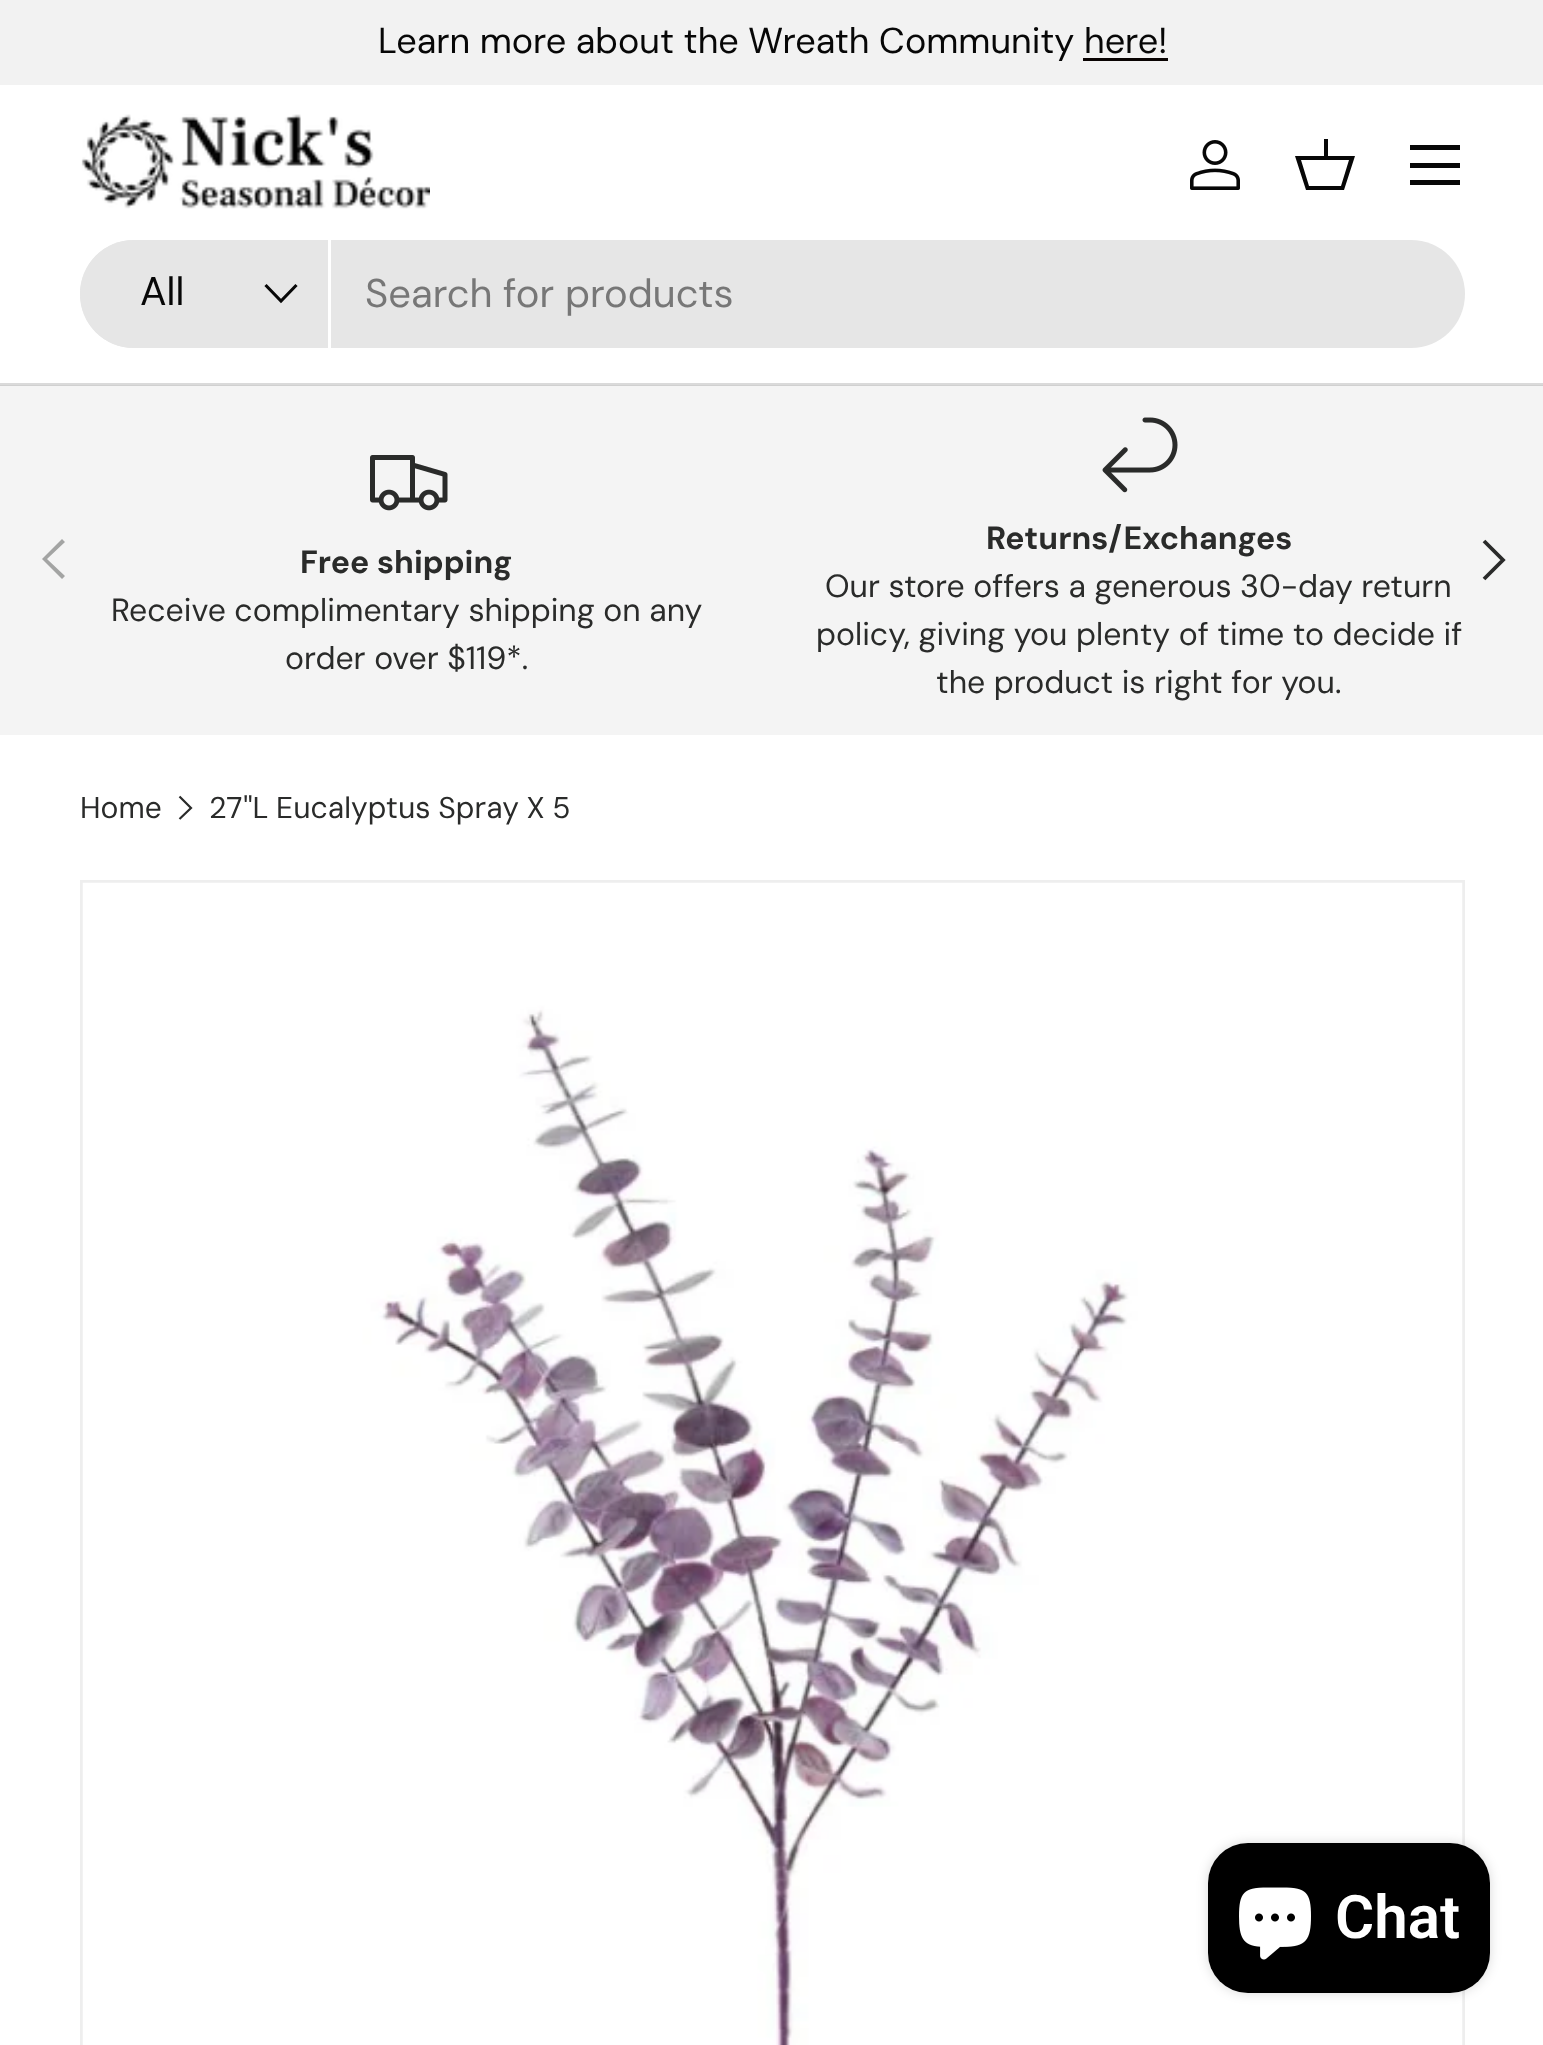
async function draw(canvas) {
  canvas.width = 1543
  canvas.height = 2045
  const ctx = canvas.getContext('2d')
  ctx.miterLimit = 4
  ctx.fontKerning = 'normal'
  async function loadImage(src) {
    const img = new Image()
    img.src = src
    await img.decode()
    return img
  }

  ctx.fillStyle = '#fff'
  ctx.fillRect(0, 0, 1543, 2045)
  ctx.fillStyle = '#dadada'
  ctx.fillRect(0, 383, 1543, 2)
  ctx.fillStyle = '#f2f2f2'
  ctx.fillRect(0, 0, 1543, 85)
  ctx.font = '36px "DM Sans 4"'
  ctx.fillStyle = '#070707'
  ctx.fillText('Learn more about the Wreath Community', 378, 53)
  ctx.fillText('here!', 1084, 53)
  ctx.fillStyle = '#090302'
  ctx.fillRect(1083, 58, 85, 3)
  ctx.drawImage(await loadImage('image0.png'), 81, 114, 349, 95)
  ctx.drawImage(await loadImage('image1.png'), 1190, 140, 50, 50)
  ctx.fillStyle = '#070707'
  ctx.beginPath()
  ctx.moveTo(1324, 156)
  ctx.lineTo(1324, 139)
  ctx.lineTo(1328, 139)
  ctx.lineTo(1328, 156)
  ctx.lineTo(1355, 156)
  ctx.lineTo(1344, 190)
  ctx.lineTo(1306, 190)
  ctx.lineTo(1295, 156)
  ctx.closePath()
  ctx.moveTo(1301, 160)
  ctx.lineTo(1309, 186)
  ctx.lineTo(1341, 186)
  ctx.lineTo(1349, 160)
  ctx.closePath()
  ctx.fill()
  ctx.fillRect(1410, 145, 50, 5)
  ctx.fillRect(1410, 180, 50, 5)
  ctx.fillRect(1410, 163, 50, 5)
  ctx.fillStyle = '#e6e6e6'
  ctx.beginPath()
  ctx.roundRect(80, 240, 1385, 108, 54)
  ctx.fill()
  ctx.beginPath()
  ctx.roundRect(80, 240, 250, 108, [54, 0, 0, 54])
  ctx.fill()
  ctx.fillStyle = '#fff'
  ctx.fillRect(328, 240, 3, 108)
  ctx.font = '40px "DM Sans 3"'
  ctx.fillStyle = '#070707'
  ctx.fillText('All', 140, 305)
  ctx.beginPath()
  ctx.moveTo(296.5, 285)
  ctx.lineTo(281, 301)
  ctx.lineTo(265.5, 285)
  ctx.strokeStyle = '#070707'
  ctx.lineWidth = 3.1
  ctx.stroke()
  ctx.fillStyle = '#777'
  ctx.fillText('Search for products', 365, 307)
  ctx.fillStyle = '#f4f4f4'
  ctx.fillRect(0, 386, 1543, 349)
  ctx.fillStyle = '#d0d0d0'
  ctx.fillRect(0, 385, 1543, 1)
  ctx.drawImage(await loadImage('image2.png'), 370, 455, 78, 56)
  ctx.font = 'bold 32px DM Sans'
  ctx.fillStyle = '#2a2b2a'
  ctx.fillText('Free shipping', 300, 573)
  ctx.font = '32px "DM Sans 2"'
  ctx.fillText('Receive complimentary shipping on any', 111, 621)
  ctx.fillText('order over $119*.', 285, 669)
  ctx.drawImage(await loadImage('image3.png'), 1102, 417, 76, 76)
  ctx.font = 'bold 32px DM Sans'
  ctx.fillText('Returns/Exchanges', 986, 549)
  ctx.font = '32px "DM Sans 2"'
  ctx.fillText('Our store offers a generous 30-day return', 825, 597)
  ctx.fillText('policy, giving you plenty of time to decide if', 816, 645)
  ctx.fillText('the product is right for you.', 936, 693)
  ctx.fillStyle = '#a3a4a3'
  ctx.beginPath()
  ctx.moveTo(42, 559)
  ctx.lineTo(62, 539)
  ctx.lineTo(65, 542)
  ctx.lineTo(47, 559)
  ctx.lineTo(65, 576)
  ctx.lineTo(62, 579)
  ctx.closePath()
  ctx.fill()
  ctx.beginPath()
  ctx.moveTo(1484, 541)
  ctx.lineTo(1503, 560)
  ctx.lineTo(1484, 579)
  ctx.strokeStyle = '#2a2b2a'
  ctx.lineWidth = 3.8
  ctx.stroke()
  ctx.font = '30px DM Sans'
  ctx.fillStyle = '#2a2b2a'
  ctx.fillText('Home', 80, 818)
  ctx.beginPath()
  ctx.moveTo(179.5, 796.5)
  ctx.lineTo(191, 808)
  ctx.lineTo(179.5, 819)
  ctx.lineWidth = 2.2
  ctx.stroke()
  ctx.wordSpacing = '-0.5px'
  ctx.fillText('27"L Eucalyptus Spray X 5', 209, 818)
  ctx.strokeStyle = '#eee'
  ctx.lineWidth = 3
  ctx.strokeRect(81.5, 881.5, 1382, 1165)
  ctx.drawImage(await loadImage('image4.png'), 82, 882, 1381, 1163)
  ctx.fillStyle = '#00000026'
  ctx.filter = 'blur(6px)'
  ctx.beginPath()
  ctx.roundRect(1208, 1843, 282, 150, 40)
  ctx.fill()
  ctx.filter = 'none'
  ctx.fillStyle = '#000'
  ctx.beginPath()
  ctx.roundRect(1208, 1843, 282, 150, 40)
  ctx.fill()
  ctx.drawImage(await loadImage('image5.png'), 1239, 1887, 72, 73)
  ctx.wordSpacing = '0px'
  ctx.font = '600 60px Roboto'
  ctx.fillStyle = '#fff'
  ctx.fillText('Chat', 1335, 1938)
}

draw(document.querySelector('canvas'))
